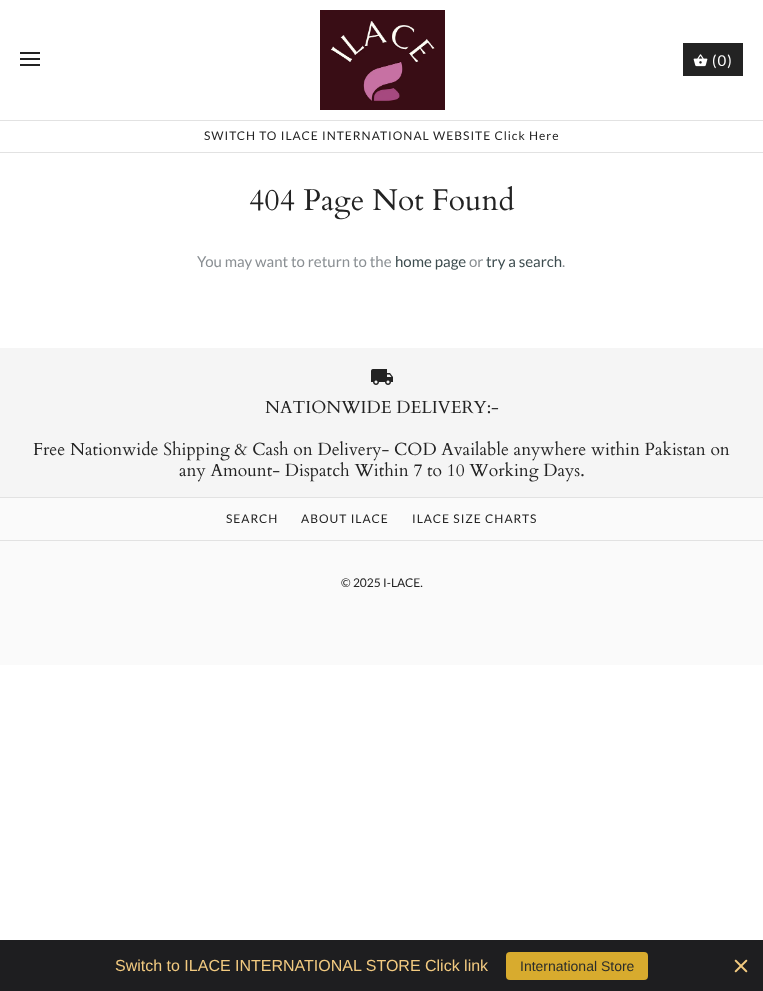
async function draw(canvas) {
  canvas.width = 763
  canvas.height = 991
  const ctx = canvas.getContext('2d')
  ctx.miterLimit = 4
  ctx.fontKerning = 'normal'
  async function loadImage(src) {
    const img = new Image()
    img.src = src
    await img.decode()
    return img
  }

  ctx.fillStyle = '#fff'
  ctx.fillRect(0, 0, 763, 991)
  ctx.fillStyle = '#e2e2e2'
  ctx.fillRect(0, 120, 763, 1)
  ctx.fillStyle = '#232323'
  ctx.fillRect(20, 52, 20, 2)
  ctx.fillRect(20, 58, 20, 2)
  ctx.fillRect(20, 64, 20, 2)
  ctx.drawImage(await loadImage('image0.png'), 320, 10, 125, 100)
  ctx.fillRect(683, 43, 60, 33)
  ctx.drawImage(await loadImage('image1.png'), 693, 54, 15, 13)
  ctx.letterSpacing = '1px'
  ctx.font = '15px Lato'
  ctx.fillStyle = '#fff'
  ctx.fillText('(0)', 712, 66)
  ctx.fillStyle = '#e2e2e2'
  ctx.fillRect(0, 152, 763, 1)
  ctx.font = '12px Lato'
  ctx.fillStyle = '#232323'
  ctx.fillText('SWITCH TO ILACE INTERNATIONAL WEBSITE Click Here', 204, 140)
  ctx.letterSpacing = '0px'
  ctx.font = '30px Cardo'
  ctx.fillText('404 Page Not Found', 249, 210)
  ctx.font = '15px Lato'
  ctx.fillStyle = '#8a8f93'
  ctx.fillText('You may want to return to the', 197, 267)
  ctx.fillStyle = '#3d4c4f'
  ctx.fillText('home page', 395, 267)
  ctx.fillStyle = '#8a8f93'
  ctx.fillText('or', 469, 267)
  ctx.fillStyle = '#3d4c4f'
  ctx.fillText('try a search', 486, 267)
  ctx.fillStyle = '#8a8f93'
  ctx.fillText('.', 562, 267)
  ctx.fillStyle = '#fafafa'
  ctx.fillRect(0, 498, 763, 167)
  ctx.fillStyle = '#f5f5f5'
  ctx.fillRect(0, 348, 763, 149)
  ctx.drawImage(await loadImage('image2.png'), 371, 369, 22, 16)
  ctx.font = '17.5px Cardo'
  ctx.fillStyle = '#232323'
  ctx.fillText('NATIONWIDE DELIVERY:-', 265, 413)
  ctx.fillText('Free Nationwide Shipping & Cash on Delivery- COD Available anywhere within Pakistan on', 33, 455)
  ctx.fillText('any Amount- Dispatch Within 7 to 10 Working Days.', 179, 476)
  ctx.fillStyle = '#e2e2e2'
  ctx.fillRect(0, 497, 763, 1)
  ctx.fillRect(0, 540, 763, 1)
  ctx.letterSpacing = '1px'
  ctx.font = '12px Lato'
  ctx.fillStyle = '#232323'
  ctx.fillText('SEARCH', 226, 523)
  ctx.fillText('ABOUT ILACE', 301, 523)
  ctx.fillText('ILACE SIZE CHARTS', 412, 523)
  ctx.letterSpacing = '0px'
  ctx.fillText('© 2025 I-LACE.', 341, 587)
  ctx.fillStyle = '#1e1e20'
  ctx.fillRect(0, 940, 763, 51)
  ctx.font = '16px Liberation Sans'
  ctx.fillStyle = '#f2ca80'
  ctx.fillText('Switch to ILACE INTERNATIONAL STORE Click link', 115, 971)
  ctx.fillStyle = '#d8ab2e'
  ctx.beginPath()
  ctx.roundRect(506, 952, 142, 28, 4)
  ctx.fill()
  ctx.font = '14px Liberation Sans'
  ctx.fillStyle = '#2a2c2b'
  ctx.fillText('International Store', 520, 971)
  ctx.drawImage(await loadImage('image3.png'), 734, 959, 14, 14)
}

draw(document.querySelector('canvas'))
